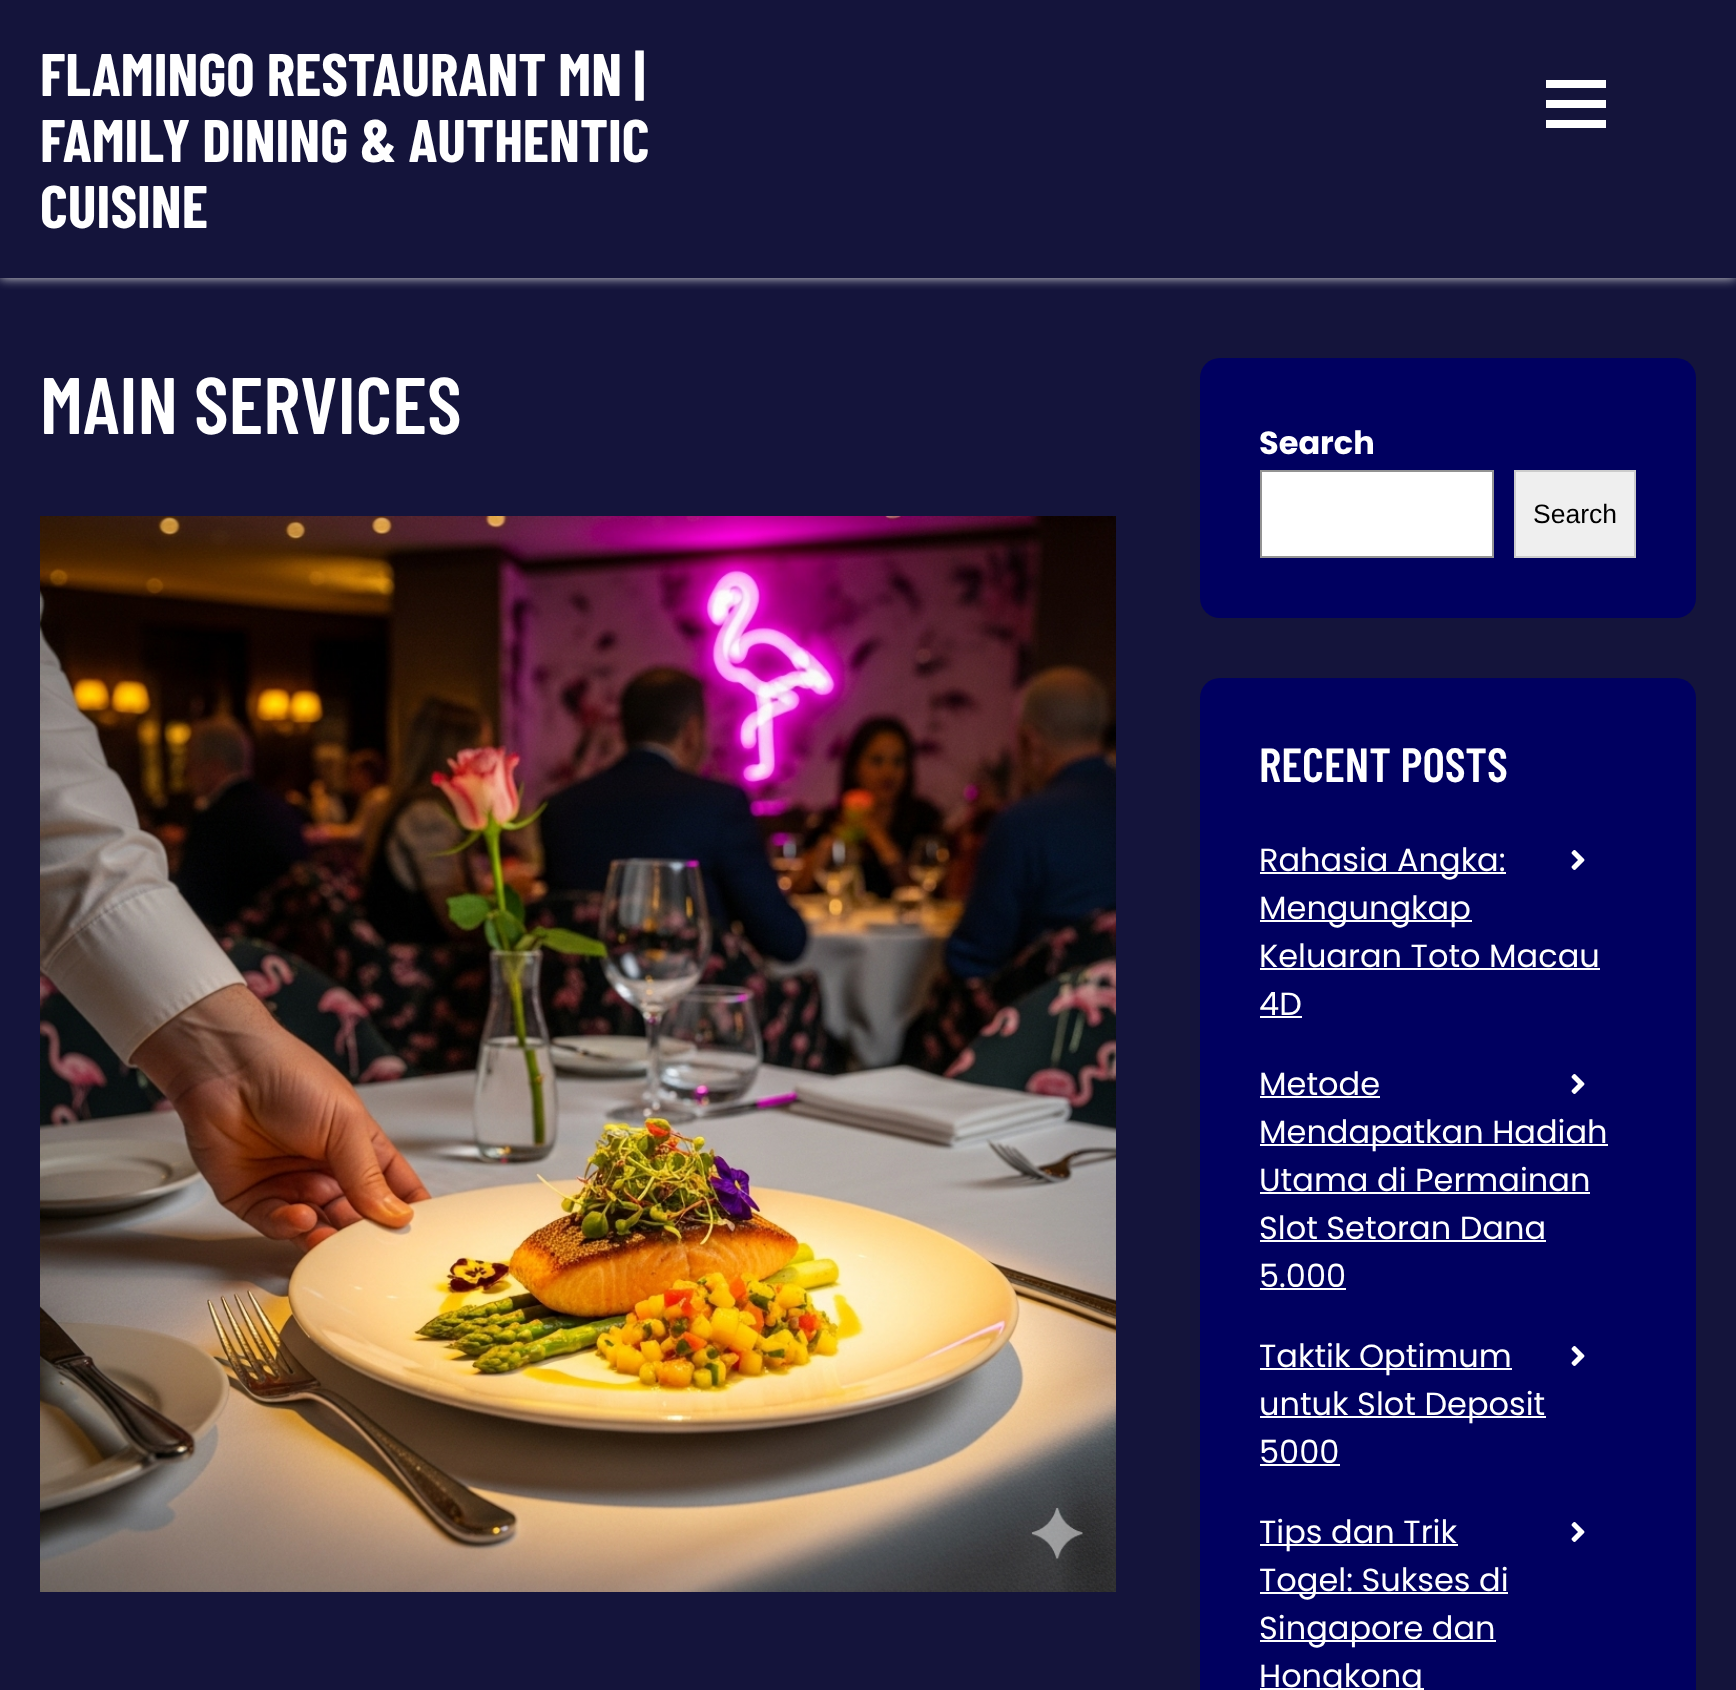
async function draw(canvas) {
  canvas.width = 1736
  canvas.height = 1690
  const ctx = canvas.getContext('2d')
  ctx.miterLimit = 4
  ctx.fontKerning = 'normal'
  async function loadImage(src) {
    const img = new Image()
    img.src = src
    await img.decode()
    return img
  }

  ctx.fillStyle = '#14143b'
  ctx.fillRect(0, 0, 1736, 1690)
  ctx.save()
  ctx.beginPath()
  ctx.rect(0, 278, 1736, 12)
  ctx.clip()
  ctx.fillStyle = '#ddd'
  ctx.filter = 'blur(6px)'
  ctx.beginPath()
  ctx.rect(0, 0, 1736, 278)
  ctx.fill()
  ctx.filter = 'none'
  ctx.restore()
  ctx.font = 'bold 60px Barlow Condensed'
  ctx.fillStyle = '#fff'
  ctx.fillText('FLAMINGO RESTAURANT MN |', 40, 96)
  ctx.fillText('FAMILY DINING & AUTHENTIC', 40, 162)
  ctx.fillText('CUISINE', 40, 228)
  ctx.fillRect(1546, 100, 60, 8)
  ctx.fillRect(1546, 80, 60, 8)
  ctx.fillRect(1546, 120, 60, 8)
  ctx.font = '600 80px Barlow Condensed'
  ctx.fillText('MAIN SERVICES', 40, 434)
  ctx.drawImage(await loadImage('image0.png'), 40, 516, 1076, 1076)
  ctx.fillStyle = '#000060'
  ctx.beginPath()
  ctx.roundRect(1200, 358, 496, 260, 20)
  ctx.fill()
  ctx.font = 'bold 32px Poppins'
  ctx.fillStyle = '#fff'
  ctx.fillText('Search', 1259, 454)
  ctx.beginPath()
  ctx.rect(1261, 471, 232, 86)
  ctx.fill()
  ctx.strokeStyle = '#949494'
  ctx.lineWidth = 2
  ctx.stroke()
  ctx.fillStyle = '#efefef'
  ctx.beginPath()
  ctx.rect(1515, 471, 120, 86)
  ctx.fill()
  ctx.strokeStyle = '#ccc'
  ctx.stroke()
  ctx.font = '26.5px Liberation Sans'
  ctx.fillStyle = '#000'
  ctx.fillText('Search', 1533, 523)
  ctx.fillStyle = '#000060'
  ctx.beginPath()
  ctx.roundRect(1200, 678, 496, 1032, 20)
  ctx.fill()
  ctx.font = '600 48px Barlow Condensed'
  ctx.fillStyle = '#fff'
  ctx.fillText('RECENT POSTS', 1259, 782)
  ctx.fillRect(1260, 872, 246, 2)
  ctx.font = '32px Poppins'
  ctx.fillText('Rahasia Angka:', 1259, 871)
  ctx.drawImage(await loadImage('image1.png'), 1571, 850, 14, 20)
  ctx.fillRect(1260, 920, 212, 2)
  ctx.fillText('Mengungkap', 1259, 919)
  ctx.fillText('Keluaran Toto Macau', 1259, 967)
  ctx.fillRect(1260, 968, 340, 2)
  ctx.fillText('4D', 1259, 1015)
  ctx.fillRect(1260, 1016, 42, 2)
  ctx.fillText('Metode', 1259, 1095)
  ctx.fillRect(1260, 1096, 120, 2)
  ctx.drawImage(await loadImage('image1.png'), 1571, 1074, 14, 20)
  ctx.fillRect(1260, 1144, 348, 2)
  ctx.fillText('Mendapatkan Hadiah', 1259, 1143)
  ctx.fillText('Utama di Permainan', 1259, 1191)
  ctx.fillRect(1260, 1192, 330, 2)
  ctx.fillText('Slot Setoran Dana', 1259, 1239)
  ctx.fillRect(1260, 1240, 286, 2)
  ctx.fillText('5.000', 1259, 1287)
  ctx.fillRect(1260, 1288, 86, 2)
  ctx.fillRect(1260, 1368, 252, 2)
  ctx.fillText('Taktik Optimum', 1259, 1367)
  ctx.drawImage(await loadImage('image1.png'), 1571, 1346, 14, 20)
  ctx.fillRect(1260, 1416, 286, 2)
  ctx.fillText('untuk Slot Deposit', 1259, 1415)
  ctx.fillText('5000', 1259, 1463)
  ctx.fillRect(1260, 1464, 80, 2)
  ctx.fillRect(1260, 1544, 198, 2)
  ctx.fillText('Tips dan Trik', 1259, 1543)
  ctx.drawImage(await loadImage('image1.png'), 1571, 1522, 14, 20)
  ctx.fillRect(1260, 1592, 248, 2)
  ctx.fillText('Togel: Sukses di', 1259, 1591)
  ctx.fillRect(1260, 1640, 236, 2)
  ctx.fillText('Singapore dan', 1259, 1639)
  ctx.fillRect(1260, 1688, 164, 2)
  ctx.fillText('Hongkong', 1259, 1687)
}

draw(document.querySelector('canvas'))
